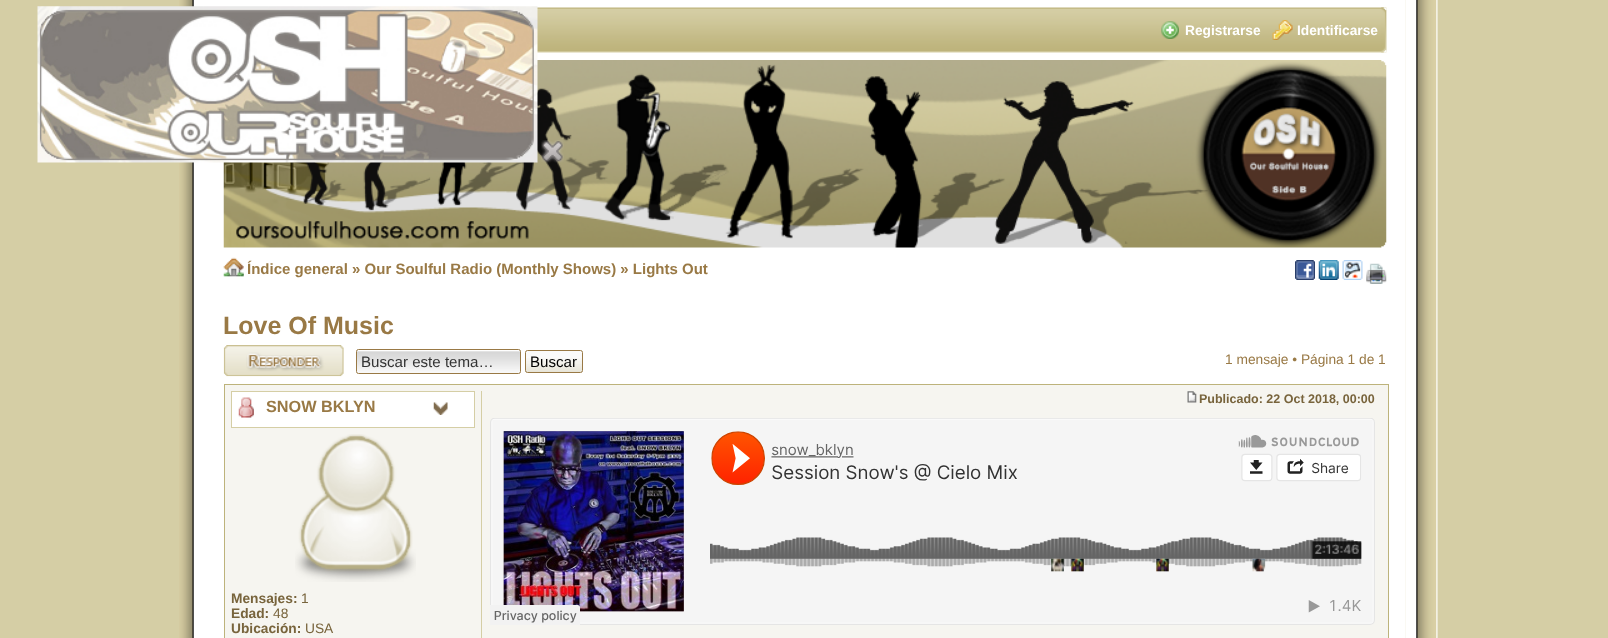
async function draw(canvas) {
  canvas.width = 1608
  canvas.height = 638
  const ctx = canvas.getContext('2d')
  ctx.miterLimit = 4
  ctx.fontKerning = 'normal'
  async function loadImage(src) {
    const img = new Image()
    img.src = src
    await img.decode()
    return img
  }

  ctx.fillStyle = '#d5cea5'
  ctx.fillRect(0, 0, 1608, 638)
  ctx.fillStyle = '#fff'
  ctx.fillRect(205, 0, 1200, 638)
  ctx.drawImage(await loadImage('image2.png'), 179, 0, 26, 638)
  ctx.drawImage(await loadImage('image3.png'), 537, 7, 850, 46)
  ctx.drawImage(await loadImage('image7.png'), 223, 60, 1164, 188)
  ctx.drawImage(await loadImage('image0.png'), 37, 6, 501, 157)
  ctx.drawImage(await loadImage('image1.png'), 541, 140, 23, 23)
  ctx.drawImage(await loadImage('image4.png'), 1381, 7, 6, 46)
  ctx.drawImage(await loadImage('image5.png'), 1161, 21, 18, 18)
  ctx.font = 'bold 13.75px Liberation Sans'
  ctx.fillText('Registrarse', 1185, 35)
  ctx.drawImage(await loadImage('image6.png'), 1272, 20, 21, 20)
  ctx.fillText('Identificarse', 1297, 35)
  ctx.drawImage(await loadImage('image8.png'), 223, 257, 21, 20)
  ctx.font = 'bold 15px Liberation Sans'
  ctx.fillStyle = '#997945'
  ctx.fillText('Índice general » Our Soulful Radio (Monthly Shows) » Lights Out', 247, 274)
  ctx.drawImage(await loadImage('image9.png'), 1295, 260, 20, 20)
  ctx.drawImage(await loadImage('image10.png'), 1318, 260, 21, 20)
  ctx.drawImage(await loadImage('image11.png'), 1342, 260, 21, 20)
  ctx.drawImage(await loadImage('image12.png'), 1366, 263, 21, 21)
  ctx.font = 'bold 25px Liberation Sans'
  ctx.fillText('Love Of Music', 223, 334)
  ctx.drawImage(await loadImage('image13.png'), 223, 345, 121, 32)
  ctx.drawImage(await loadImage('image14.png'), 356, 351, 165, 22)
  ctx.beginPath()
  ctx.roundRect(356.5, 349.5, 164, 24, 2)
  ctx.strokeStyle = '#997945'
  ctx.stroke()
  ctx.font = '15.1px Liberation Sans'
  ctx.fillStyle = '#333'
  ctx.fillText('Buscar este tema…', 361, 367)
  ctx.fillStyle = '#fafafa'
  ctx.beginPath()
  ctx.roundRect(525, 350, 58, 23, 2.5)
  ctx.fill()
  ctx.drawImage(await loadImage('image15.png'), 525, 358, 58, 15)
  ctx.beginPath()
  ctx.roundRect(525.5, 350.5, 57, 22, 2)
  ctx.stroke()
  ctx.fillStyle = '#000'
  ctx.fillText('Buscar', 530, 367)
  ctx.font = '13.75px Liberation Sans'
  ctx.fillStyle = '#997945'
  ctx.fillText('1 mensaje • Página 1 de 1', 1225, 364)
  ctx.fillStyle = '#f6f5f0'
  ctx.fillRect(225, 385, 1163, 253)
  ctx.fillStyle = '#bdb37b'
  ctx.fillRect(224, 384, 1165, 1)
  ctx.fillRect(1388, 384, 1, 254)
  ctx.fillRect(224, 384, 1, 254)
  ctx.fillStyle = '#d5cea5'
  ctx.fillRect(481, 391, 1, 247)
  ctx.fillStyle = '#fff'
  ctx.fillRect(232, 392, 242, 35)
  ctx.drawImage(await loadImage('image16.png'), 433, 402, 15, 13)
  ctx.strokeStyle = '#d5cea5'
  ctx.strokeRect(231.5, 391.5, 243, 36)
  ctx.drawImage(await loadImage('image17.png'), 238, 397, 16, 21)
  ctx.font = 'bold 16.25px Liberation Sans'
  ctx.fillStyle = '#997945'
  ctx.fillText('SNOW BKLYN', 266, 412)
  ctx.drawImage(await loadImage('image18.png'), 295, 434, 121, 148)
  ctx.font = 'bold 13.75px Liberation Sans'
  ctx.fillStyle = '#78643c'
  ctx.fillText('Mensajes:', 231, 603)
  ctx.font = '13.75px Liberation Sans'
  ctx.fillText('1', 301, 603)
  ctx.font = 'bold 13.75px Liberation Sans'
  ctx.fillText('Edad:', 231, 618)
  ctx.font = '13.75px Liberation Sans'
  ctx.fillText('48', 273, 618)
  ctx.font = 'bold 13.75px Liberation Sans'
  ctx.fillText('Ubicación:', 231, 633)
  ctx.font = '13.75px Liberation Sans'
  ctx.fillText('USA', 305, 633)
  ctx.drawImage(await loadImage('image19.png'), 1187, 391, 10, 12)
  ctx.font = 'bold 12.5px Liberation Sans'
  ctx.fillText('Publicado: 22 Oct 2018, 00:00', 1199, 403)
  ctx.drawImage(await loadImage('image20.png'), 490, 418, 885, 207)
  ctx.drawImage(await loadImage('image21.png'), 1405, 0, 33, 638)
}

draw(document.querySelector('canvas'))
